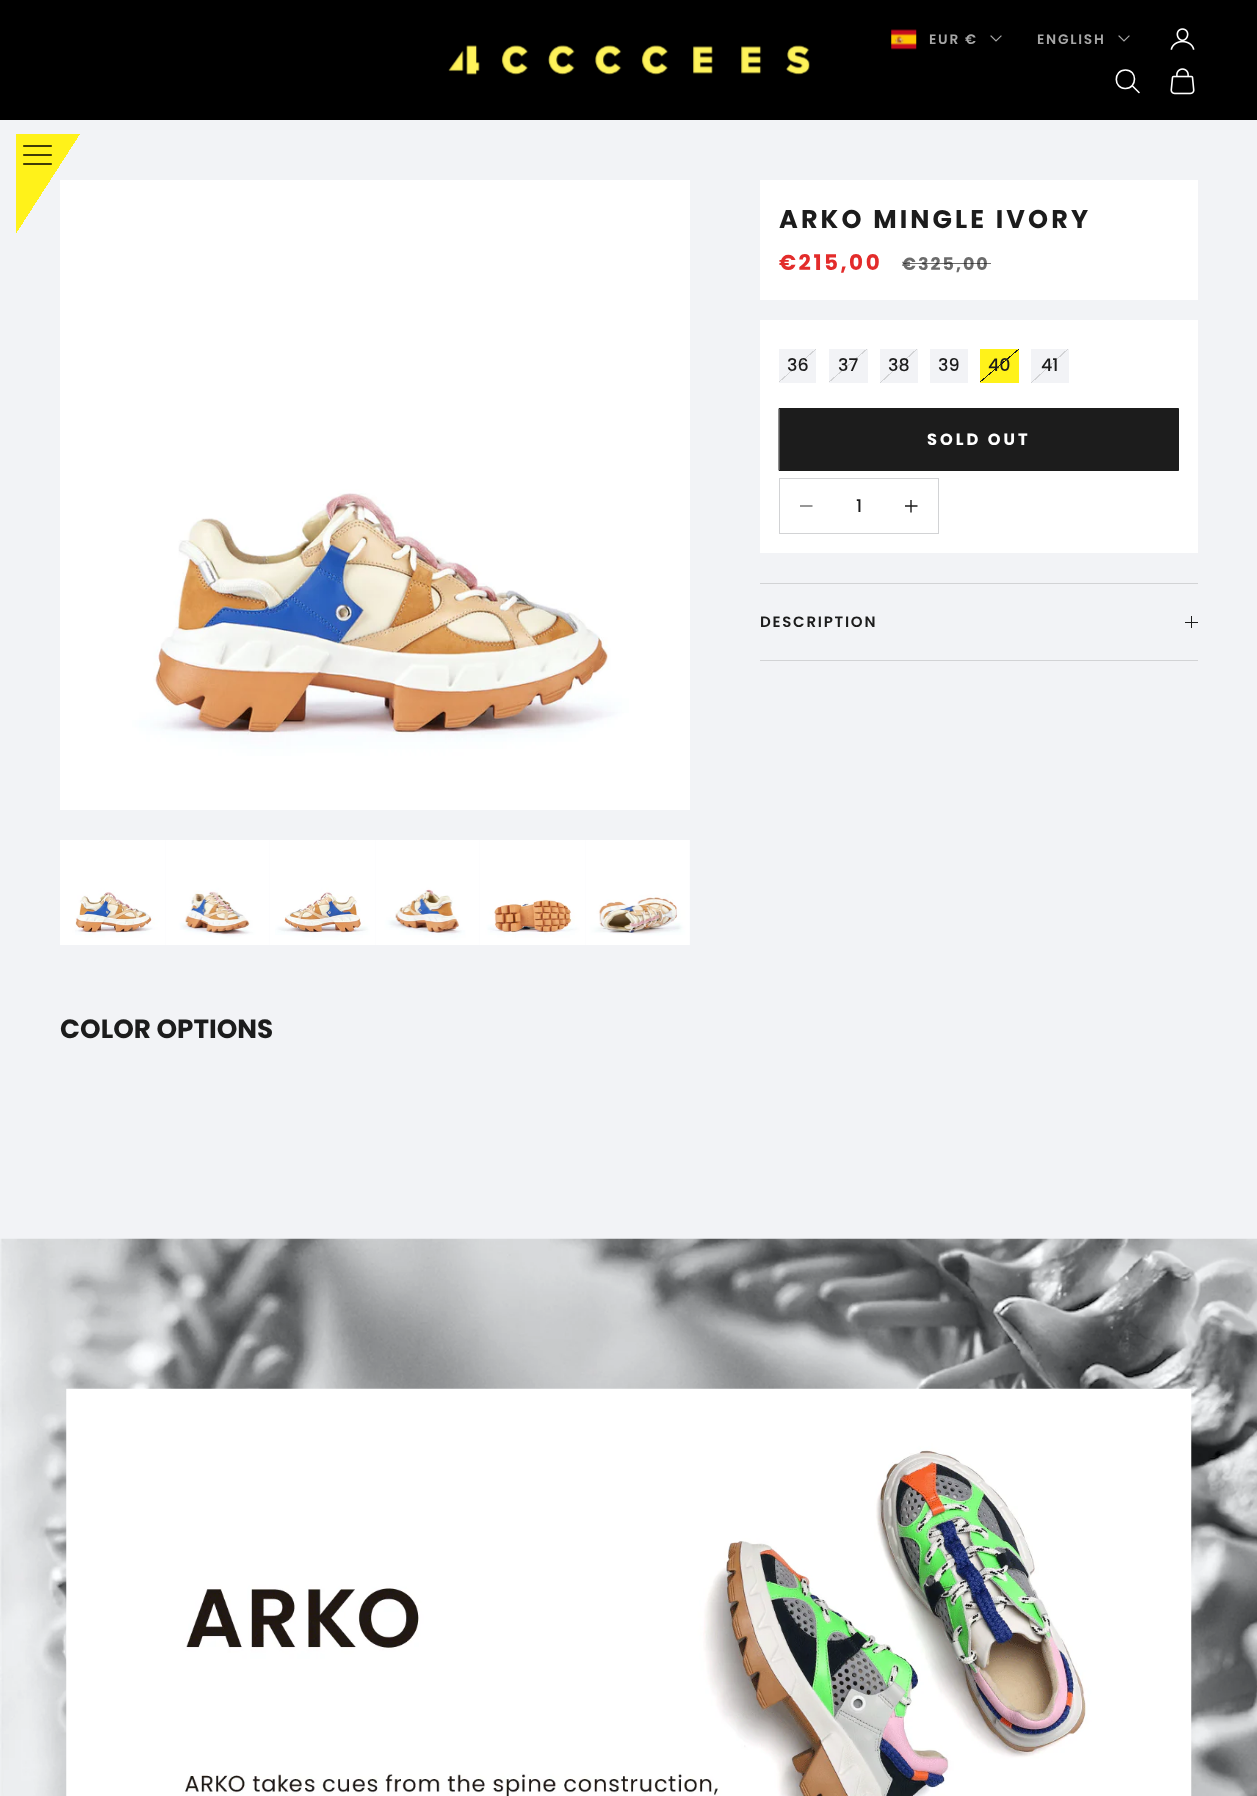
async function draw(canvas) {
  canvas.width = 1257
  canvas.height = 1796
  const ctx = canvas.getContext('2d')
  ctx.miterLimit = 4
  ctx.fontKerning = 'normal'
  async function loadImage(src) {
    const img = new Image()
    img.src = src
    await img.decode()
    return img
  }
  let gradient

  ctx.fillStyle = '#f2f3f6'
  ctx.fillRect(0, 0, 1257, 1796)
  ctx.fillStyle = '#000'
  ctx.fillRect(0, 0, 1257, 120)
  ctx.drawImage(await loadImage('image0.png'), 891, 29, 26, 21)
  ctx.letterSpacing = '1.75px'
  ctx.font = '600 13.75px Poppins'
  ctx.fillStyle = '#a6a6a6'
  ctx.fillText('EUR €', 929, 44)
  ctx.beginPath()
  ctx.moveTo(991, 36)
  ctx.lineTo(996, 41)
  ctx.lineTo(1001, 36)
  ctx.strokeStyle = '#a6a6a6'
  ctx.lineWidth = 1.2
  ctx.lineCap = 'square'
  ctx.stroke()
  ctx.fillText('ENGLISH', 1037, 44)
  ctx.beginPath()
  ctx.moveTo(1119, 36)
  ctx.lineTo(1124, 41)
  ctx.lineTo(1129, 36)
  ctx.stroke()
  ctx.drawImage(await loadImage('image1.png'), 1170, 28, 25, 22)
  ctx.beginPath()
  ctx.moveTo(1125.5, 70)
  ctx.bezierCurveTo(1113, 70, 1113.5, 89, 1125.5, 88.5)
  ctx.bezierCurveTo(1137.5, 88, 1137.5, 70, 1125.5, 70)
  ctx.closePath()
  ctx.strokeStyle = '#fff'
  ctx.lineWidth = 1.6
  ctx.lineCap = 'butt'
  ctx.stroke()
  ctx.beginPath()
  ctx.moveTo(1132.5, 86)
  ctx.lineTo(1139, 92.5)
  ctx.lineCap = 'round'
  ctx.stroke()
  ctx.drawImage(await loadImage('image2.png'), 1170, 68, 25, 27)
  ctx.drawImage(await loadImage('image3.png'), 448, 45, 362, 30)
  ctx.drawImage(await loadImage('image4.png'), 60, 180, 630, 630)
  gradient = ctx.createLinearGradient(2.8, 155, 93, 213)
  gradient.addColorStop(0.5, '#fff21a')
  gradient.addColorStop(0.5, '#fff21a00')
  ctx.fillStyle = gradient
  ctx.fillRect(16, 134, 64, 99)
  ctx.beginPath()
  ctx.moveTo(24, 164)
  ctx.lineTo(51, 164)
  ctx.moveTo(24, 155)
  ctx.lineTo(51, 155)
  ctx.moveTo(24, 146)
  ctx.lineTo(51, 146)
  ctx.strokeStyle = '#000'
  ctx.lineCap = 'square'
  ctx.stroke()
  ctx.fillStyle = '#fff'
  ctx.fillRect(760, 180, 438, 120)
  ctx.letterSpacing = '3.1px'
  ctx.font = 'bold 25.5px Poppins'
  ctx.fillStyle = '#1c1c1c'
  ctx.fillText('ARKO MINGLE IVORY', 779, 228)
  ctx.letterSpacing = '2.5px'
  ctx.font = 'bold 21.5px Poppins'
  ctx.fillStyle = '#e32c2b'
  ctx.fillText('€215,00', 779, 270)
  ctx.letterSpacing = '2px'
  ctx.font = 'bold 17.5px Poppins'
  ctx.fillStyle = '#6b6b6b'
  ctx.fillText('€325,00', 902, 270)
  ctx.fillStyle = '#1c1c1ca6'
  ctx.fillRect(903, 263, 88, 1)
  ctx.fillStyle = '#fff'
  ctx.fillRect(760, 320, 438, 233)
  ctx.fillStyle = '#f2f3f6'
  ctx.fillRect(779, 349, 37, 34)
  gradient = ctx.createLinearGradient(781, 347, 814, 384)
  gradient.addColorStop(0.49, '#d2d3d500')
  gradient.addColorStop(0.49, '#d2d3d5')
  gradient.addColorStop(0.51, '#d2d3d5')
  gradient.addColorStop(0.51, '#d2d3d500')
  ctx.fillStyle = gradient
  ctx.fillRect(779, 349, 37, 33)
  ctx.letterSpacing = '0px'
  ctx.font = '500 17.5px Poppins'
  ctx.fillStyle = '#1c1c1c'
  ctx.fillText('36', 787, 371)
  ctx.fillStyle = '#f2f3f6'
  ctx.fillRect(829, 349, 39, 34)
  gradient = ctx.createLinearGradient(831, 346, 865, 385)
  gradient.addColorStop(0.49, '#d2d3d500')
  gradient.addColorStop(0.49, '#d2d3d5')
  gradient.addColorStop(0.51, '#d2d3d5')
  gradient.addColorStop(0.51, '#d2d3d500')
  ctx.fillStyle = gradient
  ctx.fillRect(829, 349, 38, 33)
  ctx.fillStyle = '#1c1c1c'
  ctx.fillText('37', 838, 371)
  ctx.fillStyle = '#f2f3f6'
  ctx.fillRect(880, 349, 38, 34)
  gradient = ctx.createLinearGradient(882, 347, 916, 384)
  gradient.addColorStop(0.49, '#d2d3d500')
  gradient.addColorStop(0.49, '#d2d3d5')
  gradient.addColorStop(0.51, '#d2d3d5')
  gradient.addColorStop(0.51, '#d2d3d500')
  ctx.fillStyle = gradient
  ctx.fillRect(880, 349, 37, 34)
  ctx.fillStyle = '#1c1c1c'
  ctx.fillText('38', 888, 371)
  ctx.fillStyle = '#f2f3f6'
  ctx.fillRect(930, 349, 38, 34)
  ctx.fillStyle = '#1c1c1c'
  ctx.fillText('39', 938, 371)
  ctx.fillStyle = '#fff21a'
  ctx.fillRect(980, 349, 39, 34)
  gradient = ctx.createLinearGradient(983, 346, 1016, 385)
  gradient.addColorStop(0.49, '#1c1c1c00')
  gradient.addColorStop(0.49, '#1c1c1c')
  gradient.addColorStop(0.51, '#1c1c1c')
  gradient.addColorStop(0.51, '#1c1c1c00')
  ctx.fillStyle = gradient
  ctx.fillRect(980, 349, 39, 33)
  ctx.fillStyle = '#1c1c1c'
  ctx.fillText('40', 988, 371)
  ctx.fillStyle = '#f2f3f6'
  ctx.fillRect(1031, 349, 38, 34)
  gradient = ctx.createLinearGradient(1033, 347, 1067, 384)
  gradient.addColorStop(0.49, '#d2d3d500')
  gradient.addColorStop(0.49, '#d2d3d5')
  gradient.addColorStop(0.51, '#d2d3d5')
  gradient.addColorStop(0.51, '#d2d3d500')
  ctx.fillStyle = gradient
  ctx.fillRect(1031, 349, 37, 34)
  ctx.fillStyle = '#1c1c1c'
  ctx.fillText('41', 1041, 371)
  ctx.beginPath()
  ctx.rect(779.5, 408.5, 399, 62)
  ctx.fill()
  ctx.strokeStyle = '#1c1c1c'
  ctx.lineWidth = 1
  ctx.stroke()
  ctx.letterSpacing = '3px'
  ctx.font = 'bold 16.25px Poppins'
  ctx.fillStyle = '#fff'
  ctx.fillText('SOLD OUT', 927, 445)
  ctx.strokeStyle = '#d2d3d5'
  ctx.strokeRect(779.5, 478.5, 159, 55)
  ctx.beginPath()
  ctx.moveTo(800, 506)
  ctx.lineTo(812.5, 506)
  ctx.strokeStyle = '#6b6b6b'
  ctx.lineWidth = 1.4
  ctx.lineCap = 'butt'
  ctx.stroke()
  ctx.letterSpacing = '0px'
  ctx.font = '500 17.5px Poppins'
  ctx.fillStyle = '#1c1c1c'
  ctx.fillText('1', 856, 512)
  ctx.beginPath()
  ctx.moveTo(911, 500)
  ctx.lineTo(911, 512.5)
  ctx.moveTo(905, 506)
  ctx.lineTo(917.5, 506)
  ctx.strokeStyle = '#1c1c1c'
  ctx.stroke()
  ctx.fillStyle = '#d2d3d5'
  ctx.fillRect(760, 583, 438, 1)
  ctx.fillRect(760, 660, 438, 1)
  ctx.letterSpacing = '1.75px'
  ctx.font = '600 15px Poppins'
  ctx.fillStyle = '#1c1c1c'
  ctx.fillText('DESCRIPTION', 760, 627)
  ctx.fillRect(1191, 616, 1, 12)
  ctx.fillRect(1185, 622, 13, 1)
  ctx.drawImage(await loadImage('image5.png'), 60, 840, 105, 105)
  ctx.drawImage(await loadImage('image6.png'), 165, 840, 105, 105)
  ctx.drawImage(await loadImage('image7.png'), 270, 840, 105, 105)
  ctx.drawImage(await loadImage('image8.png'), 375, 840, 105, 105)
  ctx.drawImage(await loadImage('image9.png'), 480, 840, 105, 105)
  ctx.drawImage(await loadImage('image10.png'), 585, 840, 105, 105)
  ctx.letterSpacing = '0px'
  ctx.font = 'bold 26.25px Poppins'
  ctx.fillText('COLOR OPTIONS', 60, 1038)
  ctx.drawImage(await loadImage('image11.png'), 0, 1238, 1257, 558)
  ctx.drawImage(await loadImage('image12.png'), 66, 1388, 1126, 408)
}

draw(document.querySelector('canvas'))
